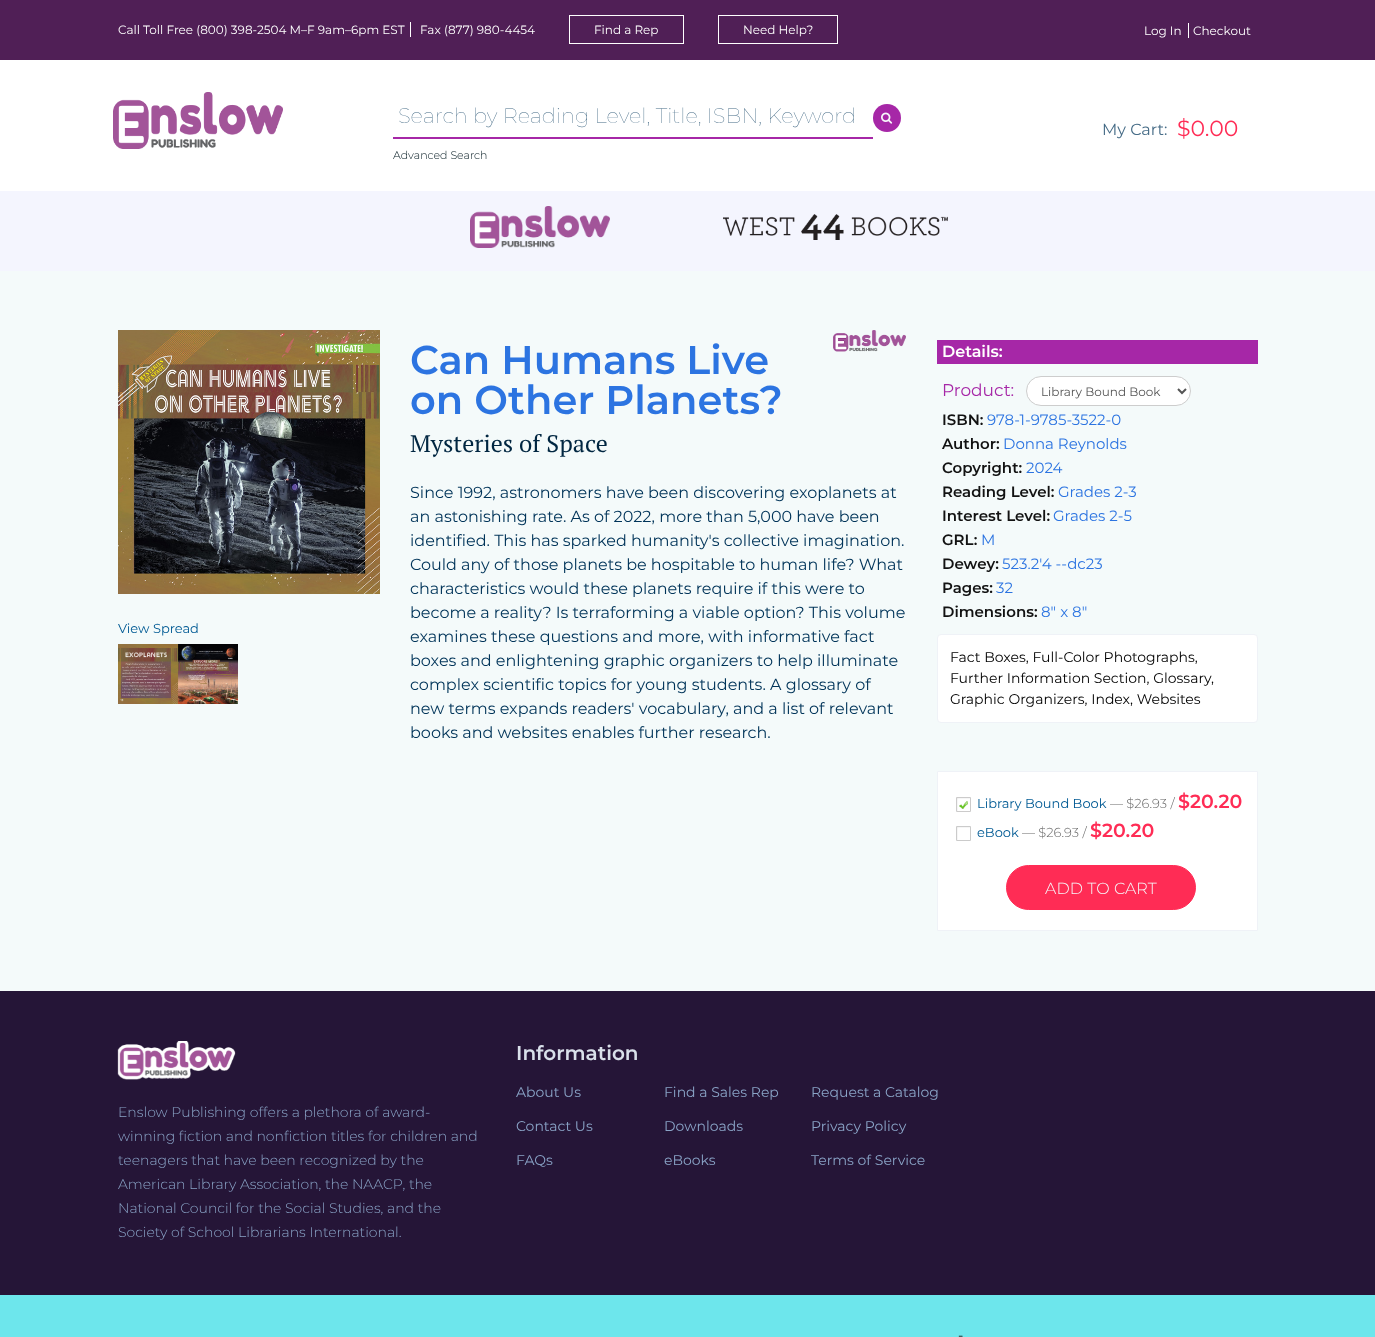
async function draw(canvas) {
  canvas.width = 1375
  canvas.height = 1337
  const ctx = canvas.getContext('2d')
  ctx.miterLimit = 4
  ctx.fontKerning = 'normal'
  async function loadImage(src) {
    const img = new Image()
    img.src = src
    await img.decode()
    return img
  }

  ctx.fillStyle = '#f4fafa'
  ctx.fillRect(0, 0, 1375, 1337)
  ctx.fillStyle = '#fff'
  ctx.fillRect(0, 60, 1375, 131)
  ctx.fillStyle = '#501f56'
  ctx.fillRect(0, 0, 1375, 60)
  ctx.font = '12px Montserrat'
  ctx.fillStyle = '#fff'
  ctx.fillText('Call Toll Free (800) 398-2504 M–F 9am–6pm EST', 118, 34)
  ctx.fillRect(410, 22, 1, 15)
  ctx.fillText('Fax (877) 980-4454', 420, 34)
  ctx.strokeStyle = '#fff'
  ctx.strokeRect(569.5, 15.5, 114, 28)
  ctx.fillText('Find a Rep', 594, 34)
  ctx.strokeRect(718.5, 15.5, 119, 28)
  ctx.fillText('Need Help?', 743, 34)
  ctx.fillText('Log In', 1144, 35)
  ctx.fillRect(1188, 23, 1, 15)
  ctx.fillText('Checkout', 1193, 35)
  ctx.drawImage(await loadImage('image0.png'), 113, 92, 170, 57)
  ctx.fillStyle = '#a627a7'
  ctx.fillRect(393, 137, 480, 2)
  ctx.font = '100 21px Montserrat'
  ctx.fillStyle = '#456b86'
  ctx.fillText('Search by Reading Level, Title, ISBN, Keyword', 398, 123)
  ctx.fillStyle = '#a627a7'
  ctx.beginPath()
  ctx.arc(887, 118, 14, 0, 2 * Math.PI)
  ctx.fill()
  ctx.drawImage(await loadImage('image1.png'), 881, 112, 12, 12)
  ctx.font = '300 11px Montserrat'
  ctx.fillStyle = '#00171f'
  ctx.fillText('Advanced Search', 393, 159)
  ctx.font = '16px Montserrat'
  ctx.fillStyle = '#456b86'
  ctx.fillText('My Cart:', 1102, 135)
  ctx.font = '22px Montserrat'
  ctx.fillStyle = '#ff2c55'
  ctx.fillText('$0.00', 1177, 136)
  ctx.fillStyle = '#f4f5fe'
  ctx.fillRect(0, 191, 1375, 80)
  ctx.drawImage(await loadImage('image2.png'), 470, 206, 140, 42)
  ctx.drawImage(await loadImage('image3.png'), 723, 214, 225, 26)
  ctx.drawImage(await loadImage('image4.png'), 118, 330, 262, 264)
  ctx.font = '13px Montserrat'
  ctx.fillStyle = '#005a94'
  ctx.fillText('View Spread', 118, 633)
  ctx.drawImage(await loadImage('image5.png'), 118, 644, 120, 60)
  ctx.font = '600 40px Montserrat'
  ctx.fillStyle = '#2c74e1'
  ctx.fillText('Can Humans Live', 410, 374)
  ctx.fillText('on Other Planets?', 410, 414)
  ctx.drawImage(await loadImage('image6.png'), 833, 330, 73, 22)
  ctx.font = '24px PT Serif'
  ctx.fillStyle = '#002641'
  ctx.fillText('Mysteries of Space', 410, 452)
  ctx.font = '16px Montserrat'
  ctx.fillStyle = '#003459'
  ctx.fillText('Since 1992, astronomers have been discovering exoplanets at', 410, 498)
  ctx.fillText('an astonishing rate. As of 2022, more than 5,000 have been', 410, 522)
  ctx.fillText('identified. This has sparked humanity\'s collective imagination.', 410, 546)
  ctx.fillText('Could any of those planets be hospitable to human life? What', 410, 570)
  ctx.fillText('characteristics would these planets require if this were to', 410, 594)
  ctx.fillText('become a reality? Is terraforming a viable option? This volume', 410, 618)
  ctx.fillText('examines these questions and more, with informative fact', 410, 642)
  ctx.fillText('boxes and enlightening graphic organizers to help illuminate', 410, 666)
  ctx.fillText('complex scientific topics for young students. A glossary of', 410, 690)
  ctx.fillText('new terms expands readers\' vocabulary, and a list of relevant', 410, 714)
  ctx.fillText('books and websites enables further research.', 410, 738)
  ctx.fillStyle = '#a627a7'
  ctx.fillRect(937, 340, 321, 24)
  ctx.font = '600 16px Montserrat'
  ctx.fillStyle = '#fff'
  ctx.fillText('Details:', 942, 357)
  ctx.font = '17px Montserrat'
  ctx.fillStyle = '#a627a7'
  ctx.fillText('Product:', 942, 396)
  ctx.fillStyle = '#fff'
  ctx.beginPath()
  ctx.roundRect(1026.5, 376.5, 164, 29, 14.5)
  ctx.fill()
  ctx.strokeStyle = '#cdcdcd'
  ctx.stroke()
  ctx.beginPath()
  ctx.moveTo(1178, 389)
  ctx.lineTo(1182, 393)
  ctx.lineTo(1186, 389)
  ctx.strokeStyle = '#555'
  ctx.lineWidth = 2
  ctx.stroke()
  ctx.font = '12px Montserrat'
  ctx.fillStyle = '#555'
  ctx.fillText('Library Bound Book', 1041, 396)
  ctx.font = '600 15px Montserrat'
  ctx.fillStyle = '#121212'
  ctx.fillText('ISBN:', 942, 425)
  ctx.font = '15px Montserrat'
  ctx.fillStyle = '#2c74e1'
  ctx.fillText('978-1-9785-3522-0', 987, 425)
  ctx.font = '600 15px Montserrat'
  ctx.fillStyle = '#121212'
  ctx.fillText('Author:', 942, 449)
  ctx.font = '15px Montserrat'
  ctx.fillStyle = '#2c74e1'
  ctx.fillText('Donna Reynolds', 1003, 449)
  ctx.font = '600 15px Montserrat'
  ctx.fillStyle = '#121212'
  ctx.fillText('Copyright:', 942, 473)
  ctx.font = '15px Montserrat'
  ctx.fillStyle = '#2c74e1'
  ctx.fillText('2024', 1026, 473)
  ctx.font = '600 15px Montserrat'
  ctx.fillStyle = '#121212'
  ctx.fillText('Reading Level:', 942, 497)
  ctx.font = '15px Montserrat'
  ctx.fillStyle = '#2c74e1'
  ctx.fillText('Grades 2-3', 1058, 497)
  ctx.font = '600 15px Montserrat'
  ctx.fillStyle = '#121212'
  ctx.fillText('Interest Level:', 942, 521)
  ctx.font = '15px Montserrat'
  ctx.fillStyle = '#2c74e1'
  ctx.fillText('Grades 2-5', 1053, 521)
  ctx.font = '600 15px Montserrat'
  ctx.fillStyle = '#121212'
  ctx.fillText('GRL:', 942, 545)
  ctx.font = '15px Montserrat'
  ctx.fillStyle = '#2c74e1'
  ctx.fillText('M', 981, 545)
  ctx.font = '600 15px Montserrat'
  ctx.fillStyle = '#121212'
  ctx.fillText('Dewey:', 942, 569)
  ctx.font = '15px Montserrat'
  ctx.fillStyle = '#2c74e1'
  ctx.fillText('523.2\'4 --dc23', 1002, 569)
  ctx.font = '600 15px Montserrat'
  ctx.fillStyle = '#121212'
  ctx.fillText('Pages:', 942, 593)
  ctx.font = '15px Montserrat'
  ctx.fillStyle = '#2c74e1'
  ctx.fillText('32', 996, 593)
  ctx.font = '600 15px Montserrat'
  ctx.fillStyle = '#121212'
  ctx.fillText('Dimensions:', 942, 617)
  ctx.font = '15px Montserrat'
  ctx.fillStyle = '#2c74e1'
  ctx.fillText('8" x 8"', 1041, 617)
  ctx.fillStyle = '#fff'
  ctx.beginPath()
  ctx.roundRect(937.5, 634.5, 320, 88, 3.5)
  ctx.fill()
  ctx.strokeStyle = '#eff2f7'
  ctx.lineWidth = 1
  ctx.stroke()
  ctx.font = '14px Montserrat'
  ctx.fillStyle = '#000'
  ctx.fillText('Fact Boxes, Full-Color Photographs,', 950, 662)
  ctx.fillText('Further Information Section, Glossary,', 950, 683)
  ctx.fillText('Graphic Organizers, Index, Websites', 950, 704)
  ctx.fillStyle = '#fff'
  ctx.beginPath()
  ctx.rect(937.5, 771.5, 320, 159)
  ctx.fill()
  ctx.stroke()
  ctx.drawImage(await loadImage('image7.png'), 956, 797, 15, 15)
  ctx.font = '13px Montserrat'
  ctx.fillStyle = '#005a94'
  ctx.fillText('Library Bound Book', 977, 808)
  ctx.font = '300 13px Montserrat'
  ctx.fillStyle = '#666'
  ctx.fillText('— $26.93 /', 1110, 808)
  ctx.font = '600 19px Montserrat'
  ctx.fillStyle = '#ff2c55'
  ctx.fillText('$20.20', 1178, 808)
  ctx.drawImage(await loadImage('image8.png'), 956, 826, 15, 15)
  ctx.font = '13px Montserrat'
  ctx.fillStyle = '#005a94'
  ctx.fillText('eBook', 977, 837)
  ctx.font = '300 13px Montserrat'
  ctx.fillStyle = '#666'
  ctx.fillText('— $26.93 /', 1022, 837)
  ctx.font = '600 19px Montserrat'
  ctx.fillStyle = '#ff2c55'
  ctx.fillText('$20.20', 1090, 837)
  ctx.beginPath()
  ctx.roundRect(1006.5, 865.5, 189, 44, 22)
  ctx.fill()
  ctx.strokeStyle = '#ff2c55'
  ctx.stroke()
  ctx.letterSpacing = '0.1px'
  ctx.font = '300 16px Montserrat'
  ctx.fillStyle = '#f6f8fa'
  ctx.fillText('ADD TO CART', 1045, 894)
  ctx.fillStyle = '#251537'
  ctx.fillRect(0, 991, 1375, 304)
  ctx.drawImage(await loadImage('image9.png'), 117, 1041, 119, 39)
  ctx.letterSpacing = '0px'
  ctx.font = '300 14px Montserrat'
  ctx.fillStyle = '#8aa4c7'
  ctx.fillText('Enslow Publishing offers a plethora of award-', 118, 1117)
  ctx.fillText('winning fiction and nonfiction titles for children and', 118, 1141)
  ctx.fillText('teenagers that have been recognized by the', 118, 1165)
  ctx.fillText('American Library Association, the NAACP, the', 118, 1189)
  ctx.fillText('National Council for the Social Studies, and the', 118, 1213)
  ctx.fillText('Society of School Librarians International.', 118, 1237)
  ctx.font = '600 20px Montserrat'
  ctx.fillStyle = '#d9e0ea'
  ctx.fillText('Information', 516, 1060)
  ctx.font = '14px Montserrat'
  ctx.fillStyle = '#8aa4c7'
  ctx.fillText('About Us', 516, 1097)
  ctx.fillText('Find a Sales Rep', 664, 1097)
  ctx.fillText('Request a Catalog', 811, 1097)
  ctx.fillText('Contact Us', 516, 1131)
  ctx.fillText('Downloads', 664, 1131)
  ctx.fillText('Privacy Policy', 811, 1131)
  ctx.fillText('FAQs', 516, 1165)
  ctx.fillText('eBooks', 664, 1165)
  ctx.fillText('Terms of Service', 811, 1165)
  ctx.fillStyle = '#6de6ec'
  ctx.fillRect(0, 1295, 1375, 42)
  ctx.fillStyle = '#121212'
  ctx.fillText('-', 958, 1340)
}

draw(document.querySelector('canvas'))
